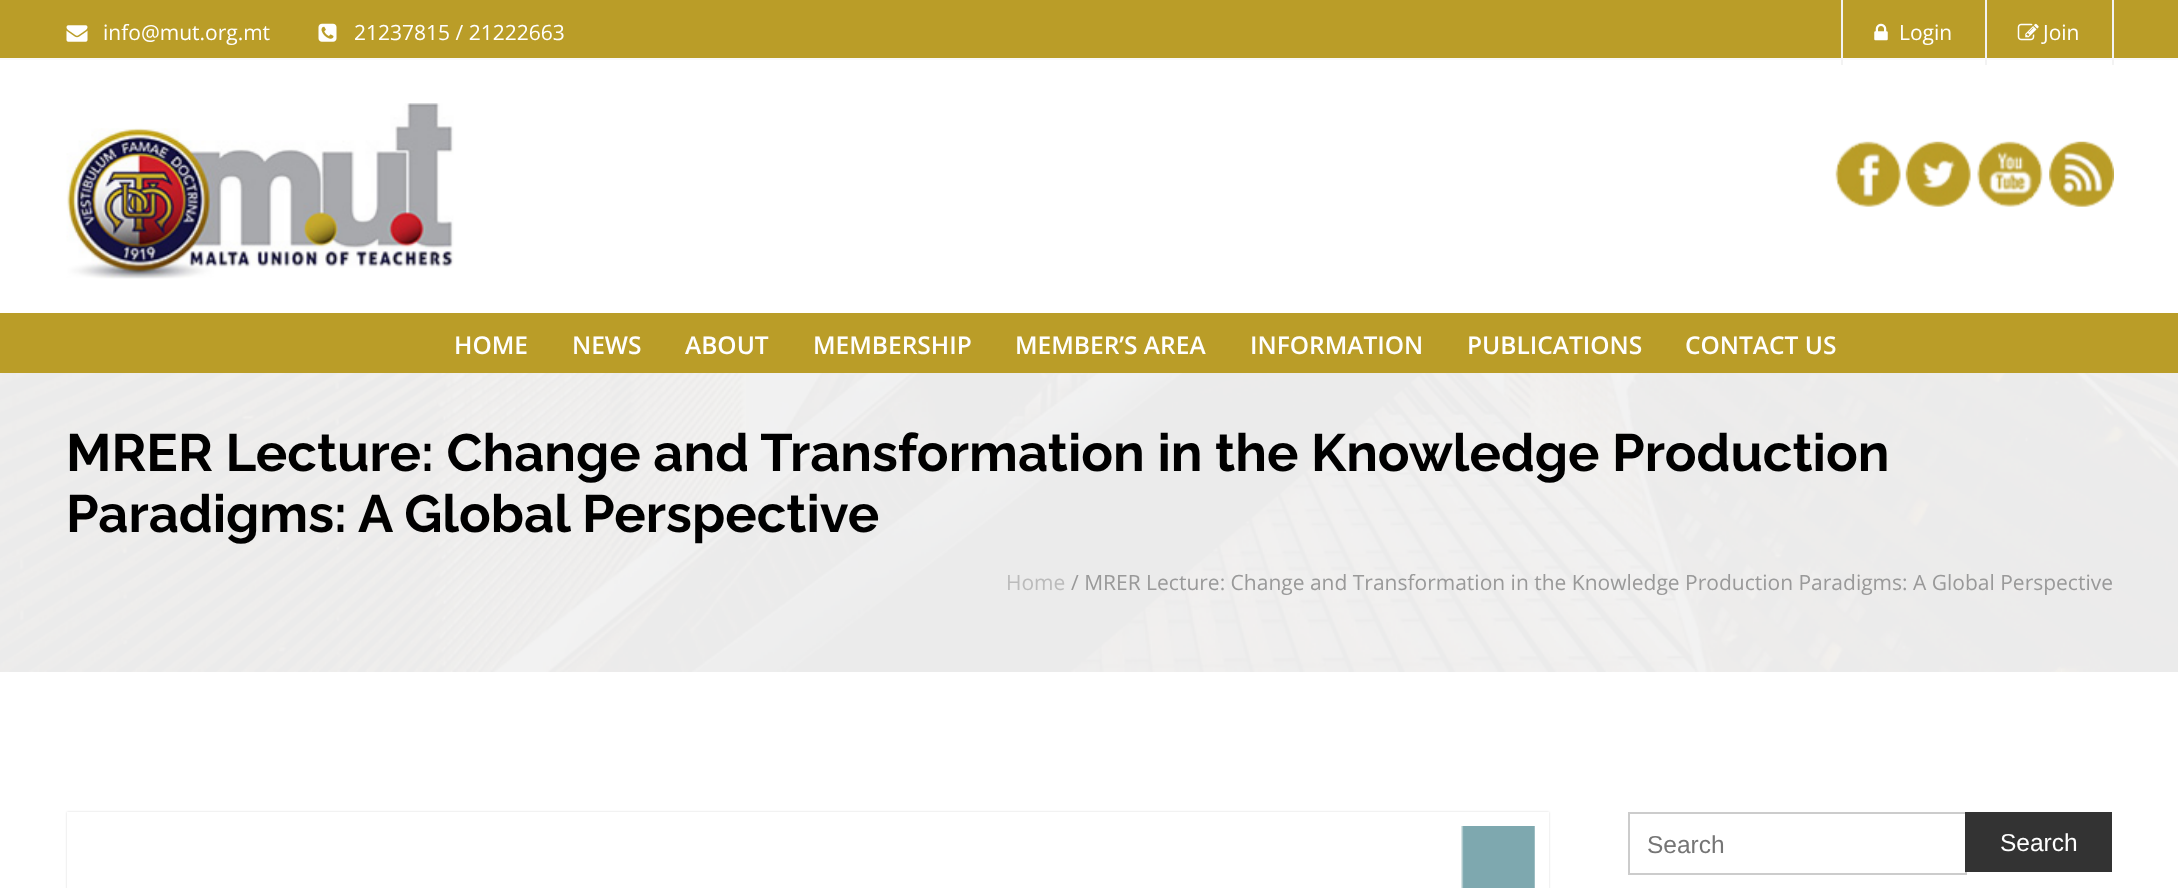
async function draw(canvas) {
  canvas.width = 2178
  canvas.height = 888
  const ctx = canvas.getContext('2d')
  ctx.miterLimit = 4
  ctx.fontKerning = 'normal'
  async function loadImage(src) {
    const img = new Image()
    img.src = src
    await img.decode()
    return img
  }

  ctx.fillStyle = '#fff'
  ctx.fillRect(0, 0, 2178, 888)
  ctx.fillStyle = '#ba9d28'
  ctx.fillRect(0, 0, 2178, 58)
  ctx.fillStyle = '#f9f9f9'
  ctx.fillRect(0, 58, 2178, 2)
  ctx.drawImage(await loadImage('image0.png'), 66, 25, 22, 17)
  ctx.font = '21px Open Sans'
  ctx.fillStyle = '#fff'
  ctx.fillText('info@mut.org.mt', 103, 40)
  ctx.drawImage(await loadImage('image1.png'), 318, 23, 19, 19)
  ctx.fillText('21237815 / 21222663', 354, 40)
  ctx.fillStyle = '#f3f3f3'
  ctx.fillRect(1985, 0, 2, 65)
  ctx.fillRect(1841, 0, 2, 65)
  ctx.drawImage(await loadImage('image2.png'), 1874, 23, 14, 18)
  ctx.fillStyle = '#fff'
  ctx.fillText('Login', 1899, 40)
  ctx.fillStyle = '#f3f3f3'
  ctx.fillRect(2112, 0, 2, 65)
  ctx.drawImage(await loadImage('image3.png'), 2017, 23, 22, 18)
  ctx.fillStyle = '#fff'
  ctx.fillText('Join', 2043, 40)
  ctx.drawImage(await loadImage('image4.png'), 66, 103, 388, 176)
  ctx.drawImage(await loadImage('image5.png'), 1835, 141, 66, 66)
  ctx.drawImage(await loadImage('image6.png'), 1905, 141, 66, 66)
  ctx.drawImage(await loadImage('image7.png'), 1977, 141, 66, 66)
  ctx.drawImage(await loadImage('image8.png'), 2049, 141, 65, 66)
  ctx.fillStyle = '#ba9d28'
  ctx.fillRect(0, 313, 2178, 60)
  ctx.font = '600 24.5px Open Sans'
  ctx.fillStyle = '#fff'
  ctx.fillText('HOME', 454, 354)
  ctx.fillText('NEWS', 572, 354)
  ctx.fillText('ABOUT', 685, 354)
  ctx.fillText('MEMBERSHIP', 813, 354)
  ctx.fillText('MEMBER’S AREA', 1015, 354)
  ctx.fillText('INFORMATION', 1250, 354)
  ctx.fillText('PUBLICATIONS', 1467, 354)
  ctx.fillText('CONTACT US', 1685, 354)
  ctx.fillStyle = '#f3f3f3'
  ctx.fillRect(0, 373, 2178, 299)
  ctx.drawImage(await loadImage('image9.png'), 0, 373, 2178, 299)
  ctx.font = 'bold 52.5px Raleway'
  ctx.fillStyle = '#000'
  ctx.fillText('MRER Lecture: Change and Transformation in the Knowledge Production', 66, 471)
  ctx.fillText('Paradigms: A Global Perspective', 66, 532)
  ctx.font = '21px Open Sans'
  ctx.fillStyle = '#bbb'
  ctx.fillText('Home', 1006, 590)
  ctx.fillStyle = '#999'
  ctx.fillText('/ MRER Lecture: Change and Transformation in the Knowledge Production Paradigms: A Global Perspective', 1071, 590)
  ctx.save()
  ctx.beginPath()
  ctx.moveTo(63, 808)
  ctx.lineTo(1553, 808)
  ctx.lineTo(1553, 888)
  ctx.lineTo(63, 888)
  ctx.closePath()
  ctx.moveTo(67, 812)
  ctx.lineTo(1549, 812)
  ctx.lineTo(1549, 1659)
  ctx.lineTo(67, 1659)
  ctx.closePath()
  ctx.clip('evenodd')
  ctx.fillStyle = '#00000026'
  ctx.filter = 'blur(1px)'
  ctx.beginPath()
  ctx.rect(67, 812, 1482, 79)
  ctx.fill()
  ctx.filter = 'none'
  ctx.restore()
  ctx.strokeStyle = '#fff'
  ctx.lineWidth = 12
  ctx.strokeRect(73, 818, 1470, 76)
  ctx.drawImage(await loadImage('image10.png'), 1461, 826, 74, 62)
  ctx.strokeStyle = '#ccc'
  ctx.lineWidth = 2
  ctx.strokeRect(1629, 813, 337, 61)
  ctx.font = '24.5px Liberation Sans'
  ctx.fillStyle = '#757575'
  ctx.fillText('Search', 1647, 853)
  ctx.fillStyle = '#333'
  ctx.fillRect(1965, 812, 147, 60)
  ctx.fillStyle = '#fff'
  ctx.fillText('Search', 2000, 851)
}

draw(document.querySelector('canvas'))
